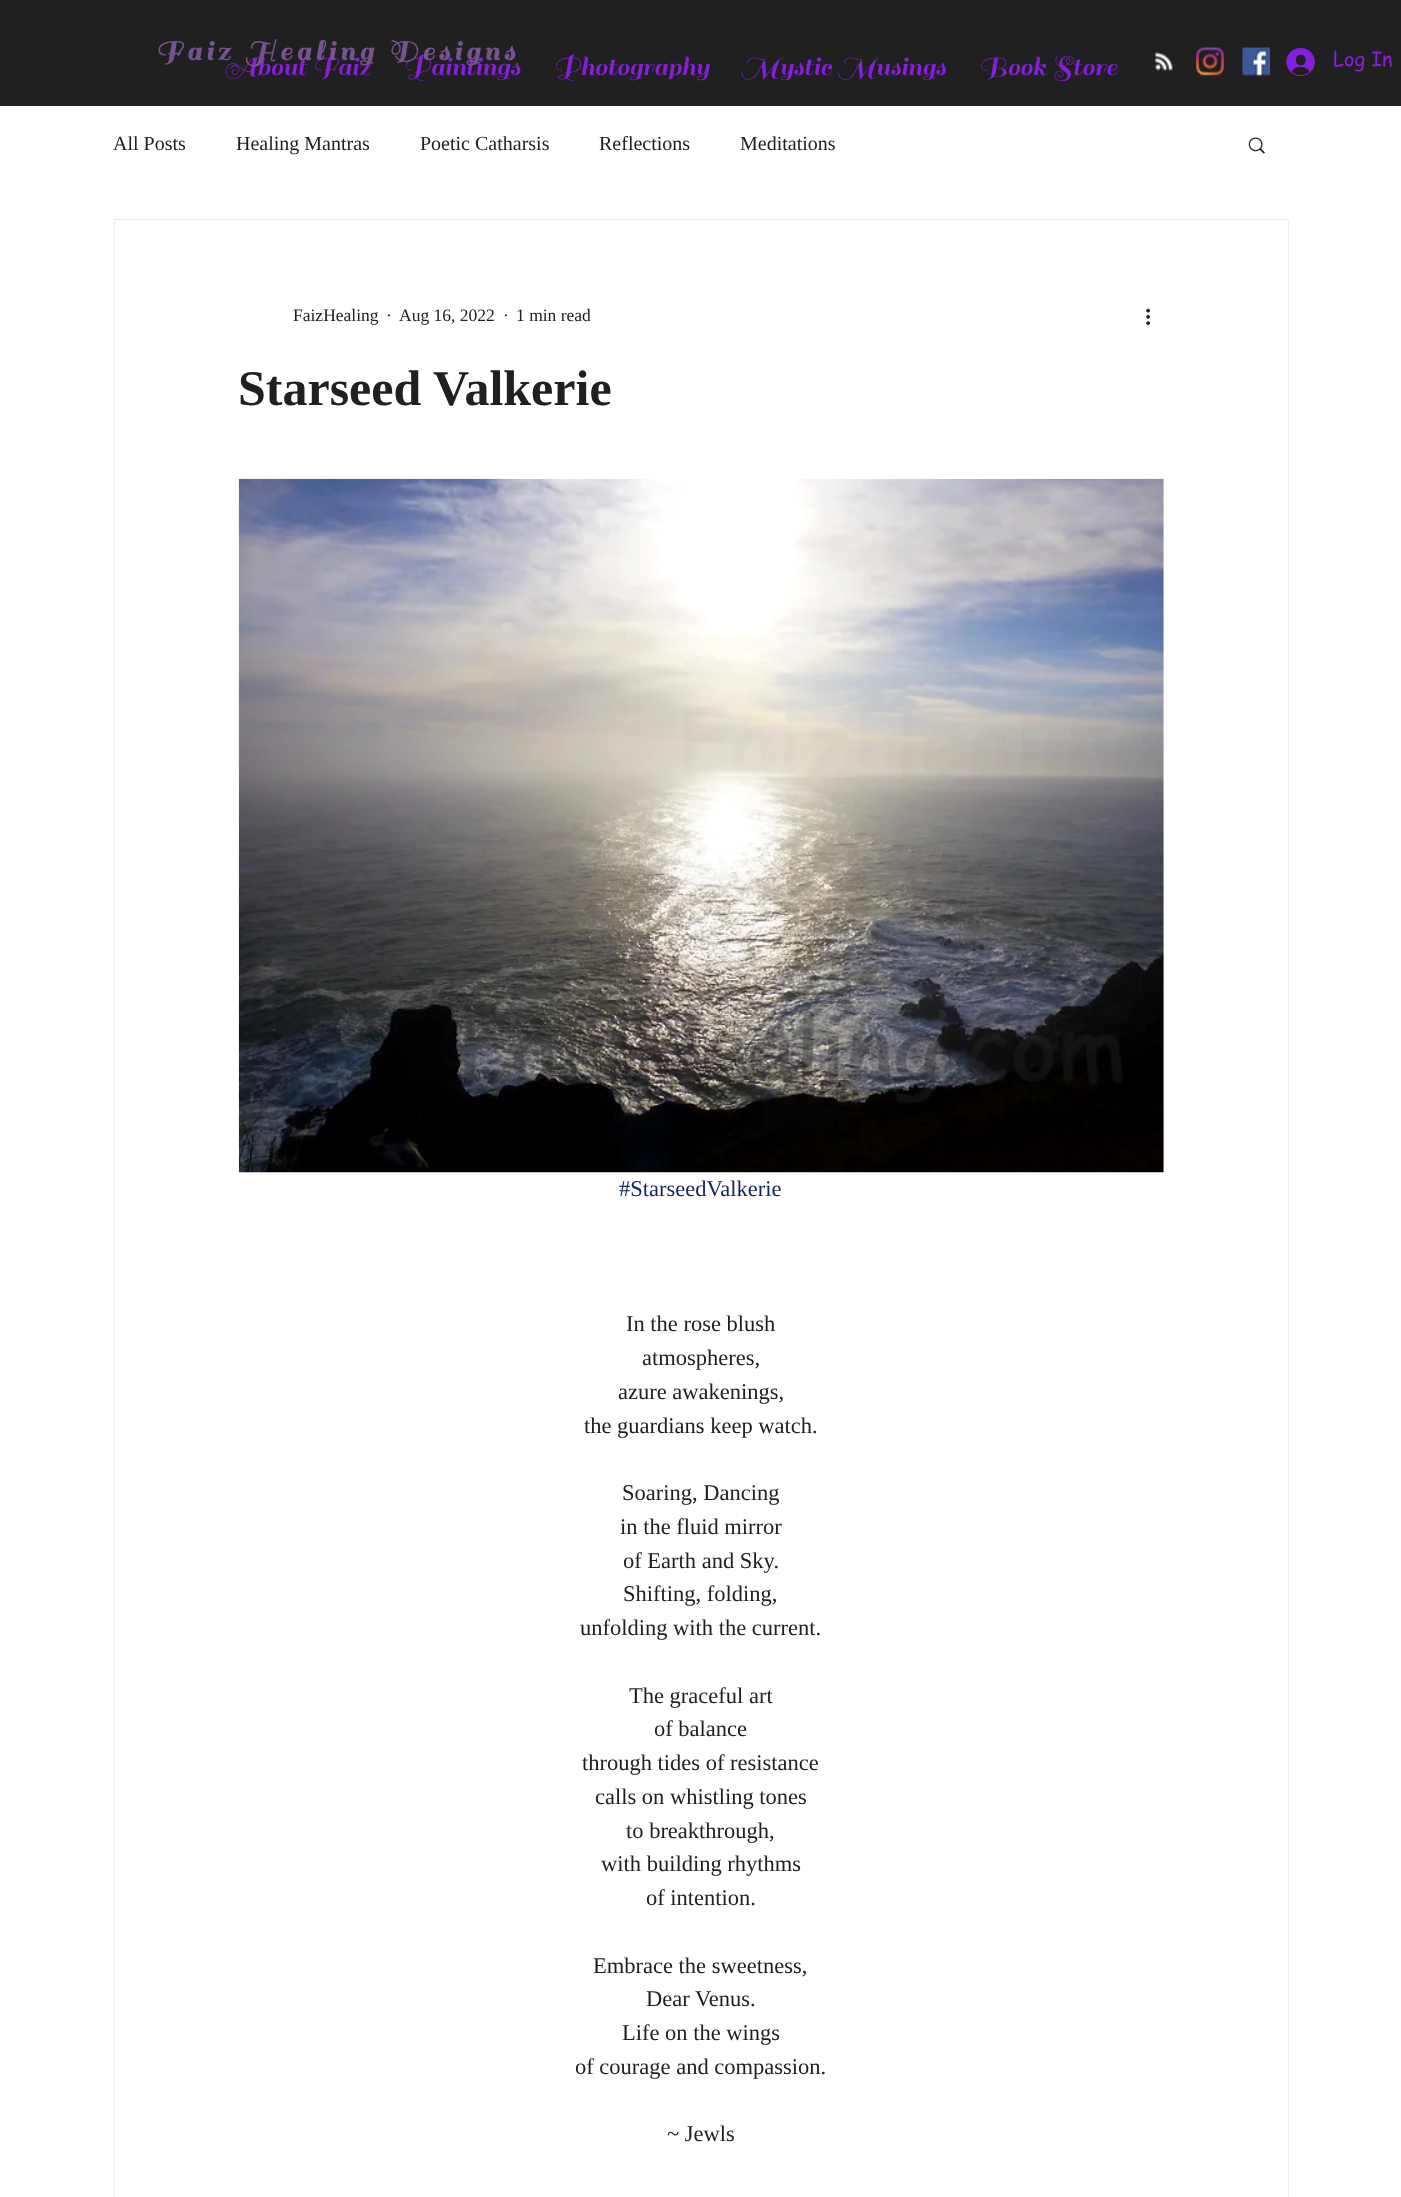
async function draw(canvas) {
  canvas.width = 1401
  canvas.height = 2197
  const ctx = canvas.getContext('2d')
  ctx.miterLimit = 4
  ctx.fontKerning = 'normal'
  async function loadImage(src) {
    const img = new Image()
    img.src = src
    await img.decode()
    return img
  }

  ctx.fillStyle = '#fff'
  ctx.fillRect(0, 0, 1401, 2197)
  ctx.fillStyle = '#202020'
  ctx.fillRect(0, 0, 1401, 106)
  ctx.font = '28.75px Sail'
  ctx.fillStyle = '#861fdb'
  ctx.fillText('About Faiz', 224, 75)
  ctx.fillText('Paintings', 403, 75)
  ctx.letterSpacing = '4.5px'
  ctx.font = 'bold 30px Sail'
  ctx.fillStyle = '#74538f'
  ctx.fillText('Faiz Healing Designs', 156, 60)
  ctx.letterSpacing = '0px'
  ctx.font = '28.75px Sail'
  ctx.fillStyle = '#861fdb'
  ctx.fillText('Photography', 553, 75)
  ctx.fillText('Mystic Musings', 741, 75)
  ctx.fillText('Book Store', 979, 75)
  ctx.drawImage(await loadImage('image0.png'), 1154, 52, 19, 19)
  ctx.drawImage(await loadImage('image1.png'), 1196, 47, 28, 29)
  ctx.drawImage(await loadImage('image2.png'), 1242, 47, 28, 29)
  ctx.drawImage(await loadImage('image3.png'), 1286, 48, 29, 28)
  ctx.font = '20px "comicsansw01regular"'
  ctx.fillText('Log In', 1333, 66)
  ctx.font = '20px Liberation Serif'
  ctx.fillStyle = '#202020'
  ctx.fillText('All Posts', 113, 150)
  ctx.fillText('Healing Mantras', 236, 150)
  ctx.fillText('Poetic Catharsis', 420, 150)
  ctx.fillText('Reflections', 599, 150)
  ctx.fillText('Meditations', 740, 150)
  ctx.drawImage(await loadImage('image4.png'), 1248, 137, 17, 17)
  ctx.strokeStyle = '#eeecec'
  ctx.strokeRect(114.5, 219.5, 1174, 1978)
  ctx.font = '17.5px Liberation Serif'
  ctx.fillText('FaizHealing', 293, 321)
  ctx.fillText('·', 386, 321)
  ctx.fillText('Aug 16, 2022', 399, 321)
  ctx.fillText('·', 503, 321)
  ctx.fillText('1 min read', 516, 321)
  ctx.drawImage(await loadImage('image5.png'), 1146, 308, 4, 17)
  ctx.font = 'bold 50px Liberation Serif'
  ctx.fillText('Starseed Valkerie', 238, 405)
  ctx.drawImage(await loadImage('image6.png'), 238, 478, 926, 695)
  ctx.font = '22.5px Liberation Serif'
  ctx.fillStyle = '#152761'
  ctx.fillText('#StarseedValkerie', 619, 1196)
  ctx.fillStyle = '#202020'
  ctx.fillText('In the rose blush', 626, 1331)
  ctx.fillText('atmospheres,', 642, 1365)
  ctx.fillText('azure awakenings,', 618, 1399)
  ctx.fillText('the guardians keep watch.', 584, 1433)
  ctx.fillText('Soaring, Dancing', 622, 1500)
  ctx.fillText('in the fluid mirror', 620, 1534)
  ctx.fillText('of Earth and Sky.', 623, 1568)
  ctx.fillText('Shifting, folding,', 623, 1601)
  ctx.fillText('unfolding with the current.', 580, 1635)
  ctx.fillText('The graceful art', 629, 1703)
  ctx.fillText('of balance', 654, 1736)
  ctx.fillText('through tides of resistance', 582, 1770)
  ctx.fillText('calls on whistling tones', 595, 1804)
  ctx.fillText('to breakthrough,', 626, 1838)
  ctx.fillText('with building rhythms', 601, 1871)
  ctx.fillText('of intention.', 646, 1905)
  ctx.fillText('Embrace the sweetness,', 593, 1973)
  ctx.fillText('Dear Venus.', 646, 2006)
  ctx.fillText('Life on the wings', 622, 2040)
  ctx.fillText('of courage and compassion.', 575, 2074)
  ctx.fillText('~ Jewls', 667, 2141)
}

draw(document.querySelector('canvas'))
